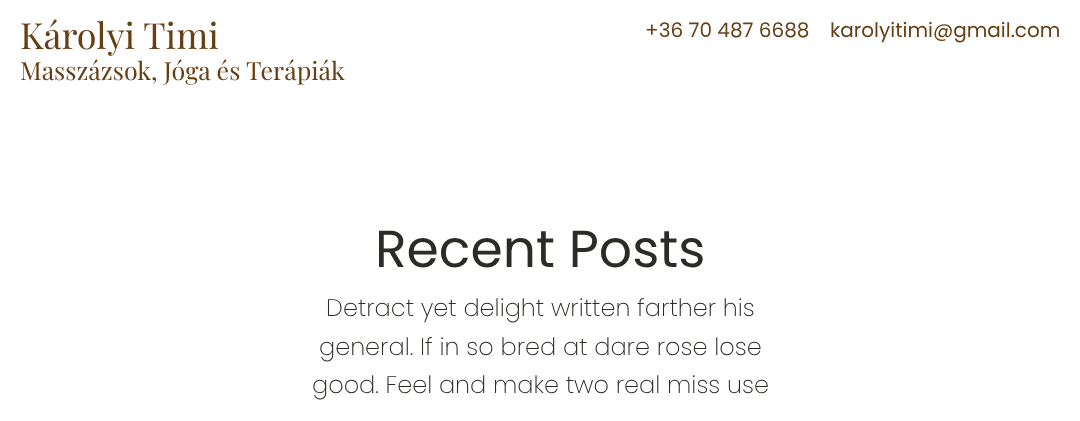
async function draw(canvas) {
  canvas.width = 1080
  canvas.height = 421
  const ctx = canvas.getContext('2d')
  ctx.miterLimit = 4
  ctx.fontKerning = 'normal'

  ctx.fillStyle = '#fff'
  ctx.fillRect(0, 0, 1080, 421)
  ctx.font = '36px Playfair Display'
  ctx.fillStyle = '#683e13'
  ctx.fillText('Károlyi Timi', 20, 49)
  ctx.font = '20px Poppins'
  ctx.fillText('+36 70 487 6688', 645, 37)
  ctx.fillText('karolyitimi@gmail.com', 830, 37)
  ctx.font = '25px Playfair Display'
  ctx.fillText('Masszázsok, Jóga és Terápiák', 20, 80)
  ctx.font = '52px Poppins'
  ctx.fillStyle = '#2b2c27'
  ctx.fillText('Recent Posts', 375, 267)
  ctx.font = '200 24px Poppins'
  ctx.fillText('Detract yet delight written farther his', 326, 316)
  ctx.fillText('general. If in so bred at dare rose lose', 319, 355)
  ctx.fillText('good. Feel and make two real miss use', 312, 393)
}

draw(document.querySelector('canvas'))
